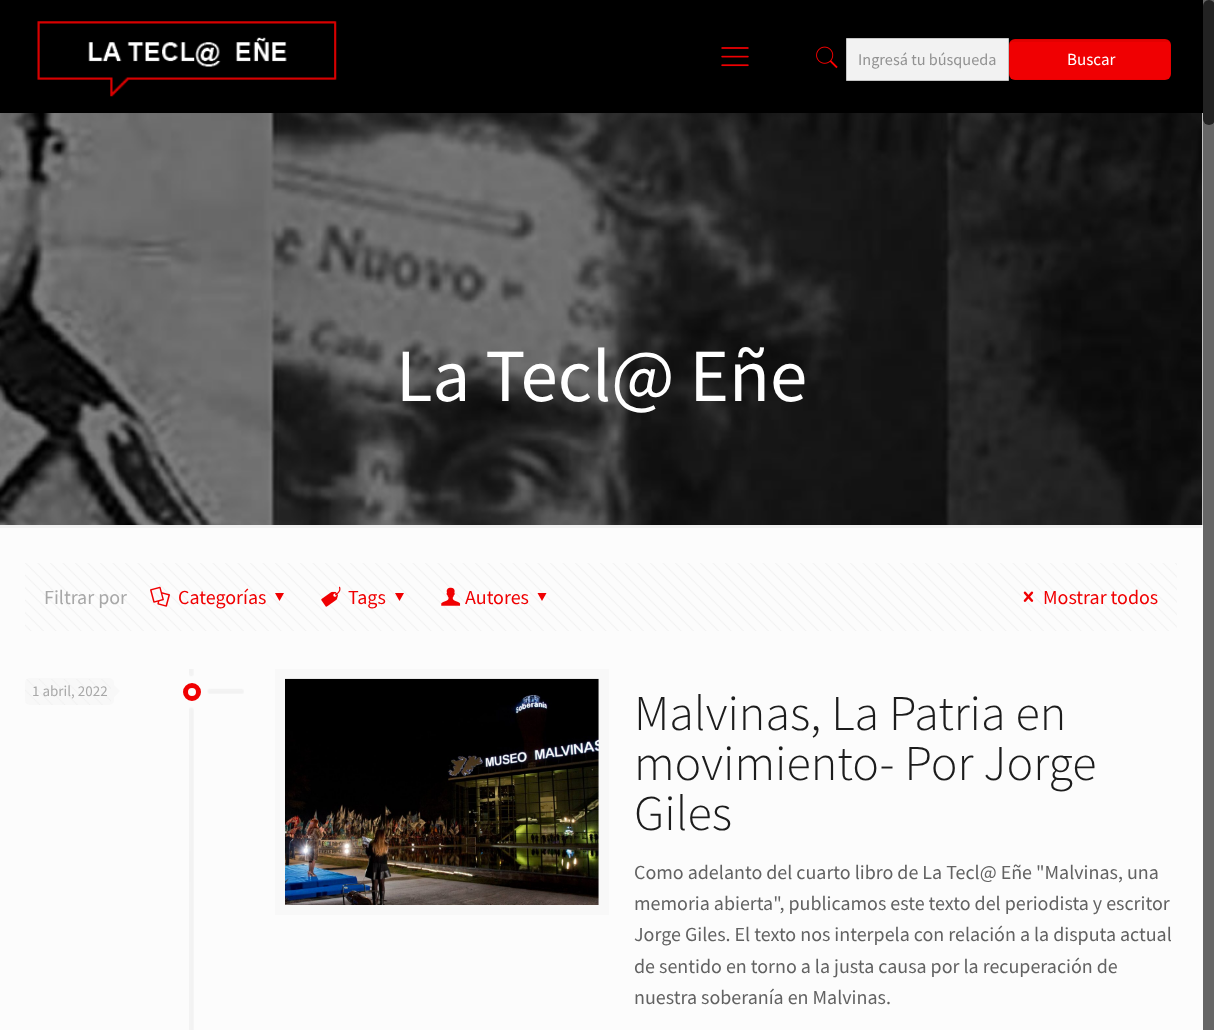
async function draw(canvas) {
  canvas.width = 1214
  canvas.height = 1030
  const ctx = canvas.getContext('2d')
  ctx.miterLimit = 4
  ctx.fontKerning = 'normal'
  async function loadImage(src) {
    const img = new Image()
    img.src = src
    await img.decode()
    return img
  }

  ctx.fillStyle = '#fcfcfc'
  ctx.fillRect(0, 0, 1214, 1030)
  ctx.drawImage(await loadImage('image0.png'), 0, 113, 1203, 412)
  ctx.fillStyle = '#000'
  ctx.fillRect(0, 0, 1203, 113)
  ctx.drawImage(await loadImage('image1.png'), 37, 21, 300, 76)
  ctx.drawImage(await loadImage('image2.png'), 721, 47, 28, 20)
  ctx.drawImage(await loadImage('image3.png'), 816, 46, 22, 23)
  ctx.fillStyle = '#f2f2f2'
  ctx.beginPath()
  ctx.rect(846.5, 38.5, 162, 42)
  ctx.fill()
  ctx.strokeStyle = '#c4c4c4'
  ctx.stroke()
  ctx.font = '16.25px Source Sans Pro'
  ctx.fillStyle = '#929292'
  ctx.fillText('Ingresá tu búsqueda', 858, 65)
  ctx.fillStyle = '#f00002'
  ctx.beginPath()
  ctx.roundRect(1009, 39, 162, 41, 6)
  ctx.fill()
  ctx.fillStyle = '#0000000d'
  ctx.fillRect(1010, 39, 160, 3)
  ctx.strokeStyle = '#00000008'
  ctx.strokeRect(1009.5, 39.5, 161, 40)
  ctx.font = '17px Source Sans Pro'
  ctx.fillStyle = '#fff'
  ctx.fillText('Buscar', 1067, 65)
  ctx.font = '75px Source Sans Pro'
  ctx.fillText('La Tecl@ Eñe', 396, 401)
  ctx.fillStyle = '#f2f2f2'
  ctx.fillRect(0, 525, 1202, 3)
  ctx.drawImage(await loadImage('image4.png'), 25, 563, 1152, 68)
  ctx.font = '20px Source Sans Pro'
  ctx.fillStyle = '#a8a8a8'
  ctx.fillText('Filtrar por', 44, 604)
  ctx.drawImage(await loadImage('image5.png'), 150, 586, 20, 21)
  ctx.fillStyle = '#f00002'
  ctx.fillText('Categorías', 178, 604)
  ctx.beginPath()
  ctx.moveTo(284, 593)
  ctx.lineTo(279.5, 601)
  ctx.lineTo(275, 593)
  ctx.closePath()
  ctx.fill()
  ctx.drawImage(await loadImage('image6.png'), 321, 586, 20, 21)
  ctx.fillText('Tags', 348, 604)
  ctx.beginPath()
  ctx.moveTo(404, 593)
  ctx.lineTo(399.5, 601)
  ctx.lineTo(395, 593)
  ctx.closePath()
  ctx.fill()
  ctx.drawImage(await loadImage('image7.png'), 441, 587, 20, 19)
  ctx.fillText('Autores', 465, 604)
  ctx.beginPath()
  ctx.moveTo(546.5, 593)
  ctx.lineTo(542, 601)
  ctx.lineTo(537.5, 593)
  ctx.closePath()
  ctx.fill()
  ctx.drawImage(await loadImage('image8.png'), 1023, 591, 11, 11)
  ctx.fillText('Mostrar todos', 1043, 604)
  ctx.drawImage(await loadImage('image9.png'), 189, 669, 55, 361)
  ctx.fillStyle = '#f8f8f8'
  ctx.beginPath()
  ctx.roundRect(25, 678, 89, 27, 5)
  ctx.fill()
  ctx.drawImage(await loadImage('image10.png'), 25, 679, 86, 26)
  ctx.font = '15px Source Sans Pro'
  ctx.fillStyle = '#a8a8a8'
  ctx.fillText('1 abril, 2022', 32, 696)
  ctx.fillStyle = '#f8f8f8'
  ctx.beginPath()
  ctx.moveTo(114, 697.5)
  ctx.lineTo(114, 685)
  ctx.lineTo(120, 691)
  ctx.closePath()
  ctx.fill()
  ctx.beginPath()
  ctx.arc(192, 692, 6.5, 0, 2 * Math.PI)
  ctx.strokeStyle = '#f00002'
  ctx.lineWidth = 5
  ctx.stroke()
  ctx.strokeStyle = '#f8f8f8'
  ctx.lineWidth = 10
  ctx.strokeRect(280, 674, 324, 236)
  ctx.drawImage(await loadImage('image11.png'), 285, 678, 314, 227)
  ctx.font = '300 50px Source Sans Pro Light'
  ctx.fillStyle = '#1c1c1c'
  ctx.fillText('Malvinas, La Patria en', 634, 730)
  ctx.fillText('movimiento- Por Jorge', 634, 780)
  ctx.fillText('Giles', 634, 830)
  ctx.font = '20px Source Sans Pro'
  ctx.fillStyle = '#626262'
  ctx.fillText('Como adelanto del cuarto libro de La Tecl@ Eñe "Malvinas, una', 634, 879)
  ctx.fillText('memoria abierta", publicamos este texto del periodista y escritor', 634, 910)
  ctx.fillText('Jorge Giles. El texto nos interpela con relación a la disputa actual', 634, 941)
  ctx.fillText('de sentido en torno a la justa causa por la recuperación de', 634, 973)
  ctx.fillText('nuestra soberanía en Malvinas.', 634, 1004)
  ctx.fillStyle = '#666'
  ctx.fillRect(1203, 0, 11, 1030)
  ctx.fillStyle = '#222'
  ctx.beginPath()
  ctx.roundRect(1203, 0, 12, 125, 6)
  ctx.fill()
}

draw(document.querySelector('canvas'))
